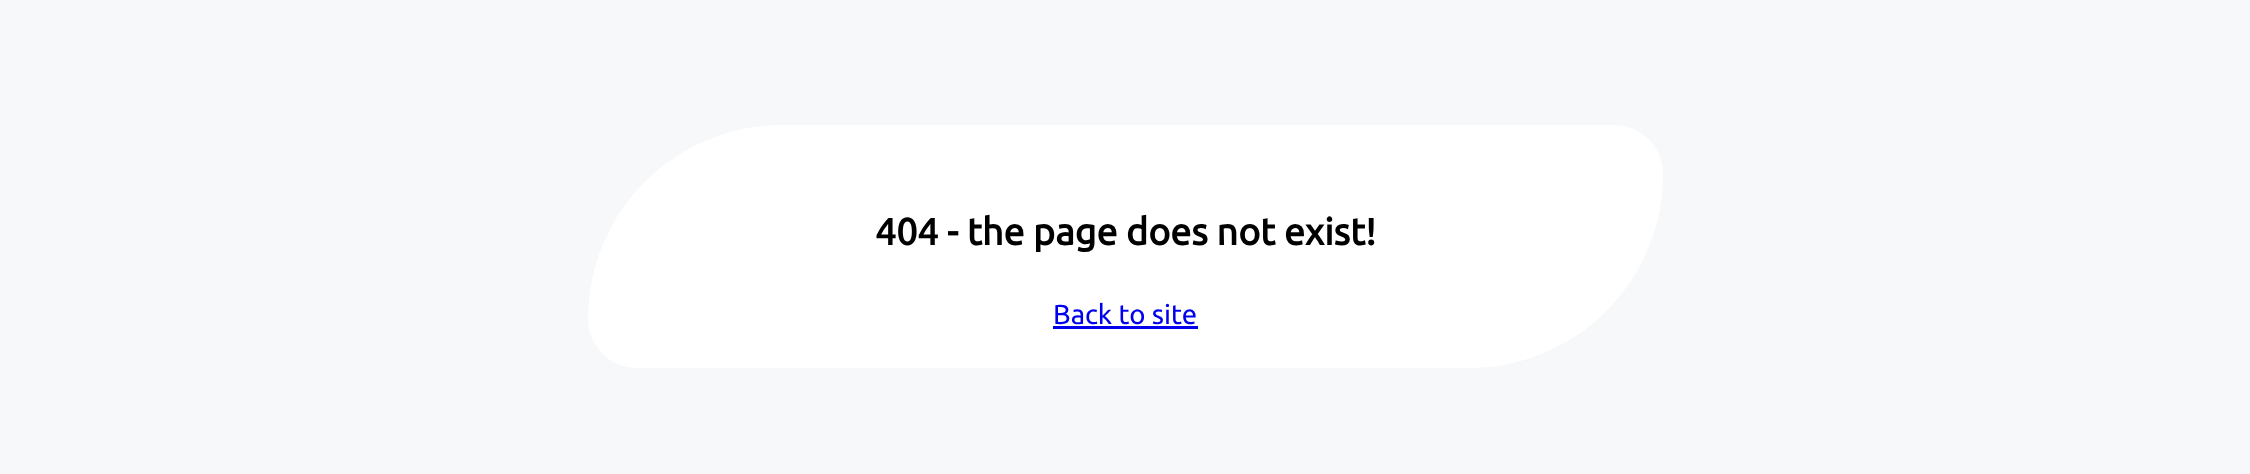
async function draw(canvas) {
  canvas.width = 2250
  canvas.height = 474
  const ctx = canvas.getContext('2d')
  ctx.miterLimit = 4
  ctx.fontKerning = 'normal'

  ctx.fillStyle = '#f7f8fa'
  ctx.fillRect(0, 0, 2250, 474)
  ctx.fillStyle = '#fff'
  ctx.beginPath()
  ctx.roundRect(588, 125, 1075, 243, [194, 49, 194, 49])
  ctx.fill()
  ctx.font = 'bold 37.5px Ubuntu'
  ctx.fillStyle = '#000'
  ctx.fillText('404 - the page does not exist!', 875, 245)
  ctx.font = '27.5px Ubuntu'
  ctx.fillStyle = '#00e'
  ctx.fillText('Back to site', 1053, 324)
  ctx.fillRect(1053, 326, 145, 3)
}

draw(document.querySelector('canvas'))
